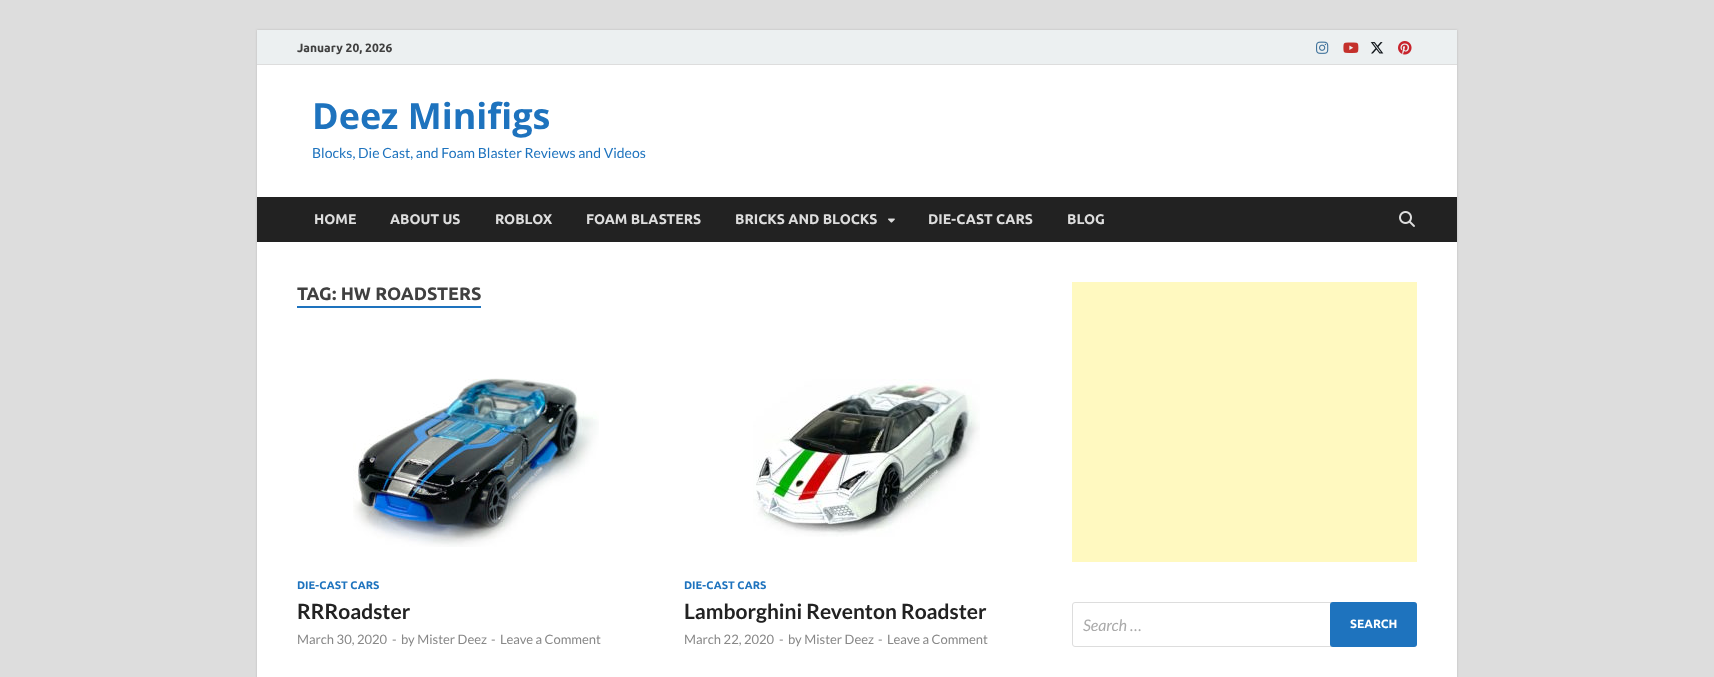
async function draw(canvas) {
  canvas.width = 1714
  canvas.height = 677
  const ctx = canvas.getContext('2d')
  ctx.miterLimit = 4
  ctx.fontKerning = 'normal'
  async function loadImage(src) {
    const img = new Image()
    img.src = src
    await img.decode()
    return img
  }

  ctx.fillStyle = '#ddd'
  ctx.fillRect(0, 0, 1714, 677)
  ctx.fillStyle = '#bbb'
  ctx.filter = 'blur(1px)'
  ctx.beginPath()
  ctx.rect(257, 30, 1200, 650)
  ctx.fill()
  ctx.filter = 'none'
  ctx.fillStyle = '#fff'
  ctx.fillRect(257, 65, 1200, 612)
  ctx.fillStyle = '#ecf0f1'
  ctx.fillRect(257, 30, 1200, 34)
  ctx.fillStyle = '#ddd'
  ctx.fillRect(257, 64, 1200, 1)
  ctx.font = 'bold 12px Ubuntu'
  ctx.fillStyle = '#404040'
  ctx.fillText('January 20, 2026', 297, 52)
  ctx.drawImage(await loadImage('image0.png'), 1316, 41, 13, 13)
  ctx.drawImage(await loadImage('image1.png'), 1343, 42, 16, 11)
  ctx.drawImage(await loadImage('image2.png'), 1370, 42, 14, 12)
  ctx.drawImage(await loadImage('image3.png'), 1398, 41, 14, 14)
  ctx.font = 'bold 36px Open Sans'
  ctx.fillStyle = '#1e73be'
  ctx.fillText('Deez Minifigs', 312, 129)
  ctx.font = '14px Lato'
  ctx.fillText('Blocks, Die Cast, and Foam Blaster Reviews and Videos', 312, 158)
  ctx.fillStyle = '#222'
  ctx.fillRect(257, 197, 1200, 45)
  ctx.font = 'bold 14px Ubuntu'
  ctx.fillStyle = '#ddd'
  ctx.fillText('HOME', 314, 224)
  ctx.fillText('ABOUT US', 390, 224)
  ctx.fillText('ROBLOX', 495, 224)
  ctx.fillText('FOAM BLASTERS', 586, 224)
  ctx.fillText('BRICKS AND BLOCKS', 735, 224)
  ctx.drawImage(await loadImage('image4.png'), 888, 218, 7, 5)
  ctx.fillText('DIE-CAST CARS', 928, 224)
  ctx.fillText('BLOG', 1067, 224)
  ctx.drawImage(await loadImage('image5.png'), 1399, 211, 16, 16)
  ctx.font = 'bold 18px Ubuntu'
  ctx.fillStyle = '#404040'
  ctx.fillText('TAG: HW ROADSTERS', 297, 300)
  ctx.fillStyle = '#1e73be'
  ctx.fillRect(297, 306, 184, 2)
  ctx.drawImage(await loadImage('image6.png'), 353, 378, 246, 169)
  ctx.font = 'bold 11px Ubuntu'
  ctx.fillText('DIE-CAST CARS', 297, 589)
  ctx.font = 'bold 21px Lato'
  ctx.fillStyle = '#222'
  ctx.fillText('RRRoadster', 297, 619)
  ctx.font = '13px Lato'
  ctx.fillStyle = '#888'
  ctx.fillText('March 30, 2020', 297, 644)
  ctx.fillText('-', 392, 644)
  ctx.fillText('by Mister Deez', 401, 644)
  ctx.fillText('-', 491, 644)
  ctx.fillText('Leave a Comment', 500, 644)
  ctx.drawImage(await loadImage('image7.png'), 753, 379, 227, 158)
  ctx.font = 'bold 11px Ubuntu'
  ctx.fillStyle = '#1e73be'
  ctx.fillText('DIE-CAST CARS', 684, 589)
  ctx.font = 'bold 21px Lato'
  ctx.fillStyle = '#222'
  ctx.fillText('Lamborghini Reventon Roadster', 684, 619)
  ctx.font = '13px Lato'
  ctx.fillStyle = '#888'
  ctx.fillText('March 22, 2020', 684, 644)
  ctx.fillText('-', 779, 644)
  ctx.fillText('by Mister Deez', 788, 644)
  ctx.fillText('-', 878, 644)
  ctx.fillText('Leave a Comment', 887, 644)
  ctx.fillStyle = '#fff9c0'
  ctx.fillRect(1072, 282, 345, 280)
  ctx.beginPath()
  ctx.roundRect(1072.5, 602.5, 344, 44, 2.5)
  ctx.strokeStyle = '#ddd'
  ctx.stroke()
  ctx.font = 'italic 16px Lato'
  ctx.fillStyle = '#aaa'
  ctx.fillText('Search …', 1083, 631)
  ctx.fillStyle = '#1e73be'
  ctx.beginPath()
  ctx.roundRect(1330, 602, 87, 45, 3)
  ctx.fill()
  ctx.font = 'bold 12px Ubuntu'
  ctx.fillStyle = '#fff'
  ctx.fillText('SEARCH', 1350, 628)
}

draw(document.querySelector('canvas'))
